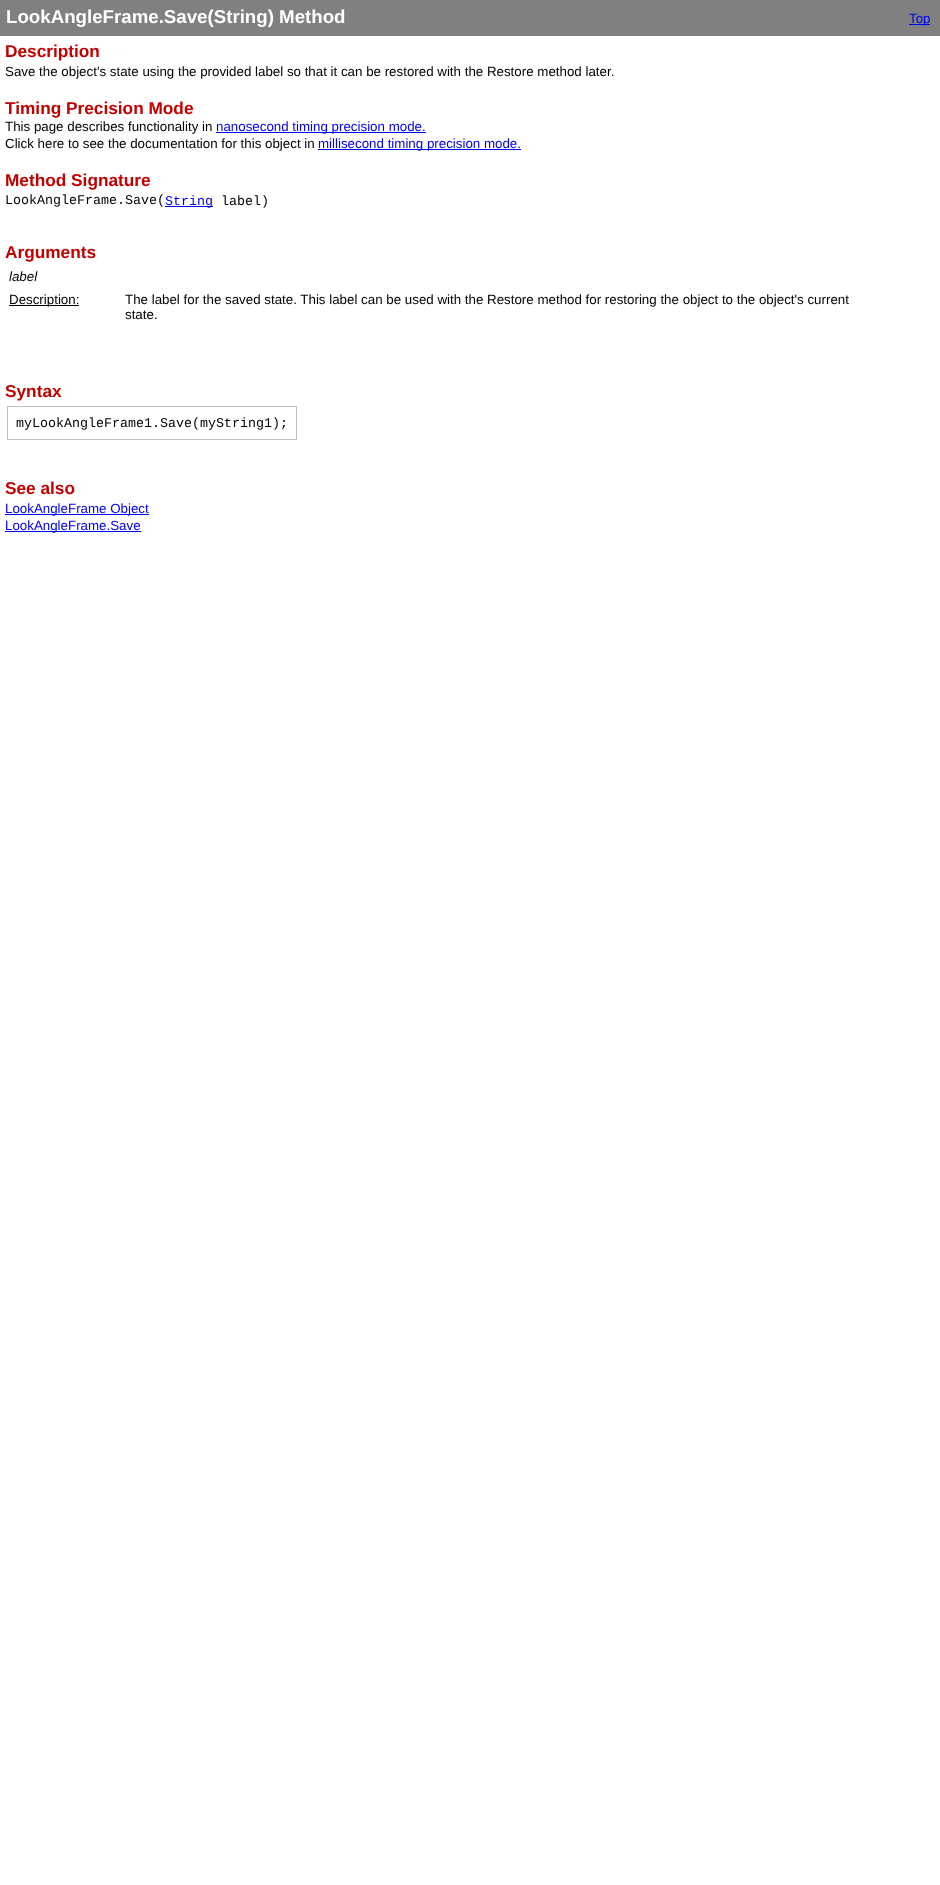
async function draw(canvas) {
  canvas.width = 940
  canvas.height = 1885
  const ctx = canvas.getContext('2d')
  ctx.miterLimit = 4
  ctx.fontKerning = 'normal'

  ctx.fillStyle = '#fff'
  ctx.fillRect(0, 0, 940, 1885)
  ctx.fillStyle = '#808080'
  ctx.fillRect(0, 0, 940, 36)
  ctx.font = 'bold 18.7px Liberation Sans'
  ctx.fillStyle = '#fff'
  ctx.fillText('LookAngleFrame.Save(String) Method', 6, 23)
  ctx.fillStyle = '#00e'
  ctx.fillRect(909, 24, 21, 1)
  ctx.font = '13.33px Liberation Sans'
  ctx.fillText('Top', 909, 23)
  ctx.font = 'bold 17.25px Liberation Sans'
  ctx.fillStyle = '#c10000'
  ctx.fillText('Description', 5, 57)
  ctx.font = '13.33px Liberation Sans'
  ctx.fillStyle = '#000'
  ctx.fillText('Save the object\'s state using the provided label so that it can be restored with the Restore method later.', 5, 76)
  ctx.font = 'bold 17.25px Liberation Sans'
  ctx.fillStyle = '#c10000'
  ctx.fillText('Timing Precision Mode', 5, 114)
  ctx.font = '13.33px Liberation Sans'
  ctx.fillStyle = '#000'
  ctx.fillText('This page describes functionality in', 5, 131)
  ctx.fillStyle = '#00e'
  ctx.fillRect(216, 132, 210, 1)
  ctx.fillText('nanosecond timing precision mode.', 216, 131)
  ctx.fillStyle = '#000'
  ctx.fillText('Click here to see the documentation for this object in', 5, 148)
  ctx.fillStyle = '#00e'
  ctx.fillRect(318, 149, 203, 1)
  ctx.fillText('millisecond timing precision mode.', 318, 148)
  ctx.font = 'bold 17.25px Liberation Sans'
  ctx.fillStyle = '#c10000'
  ctx.fillText('Method Signature', 5, 186)
  ctx.font = '13.33px Liberation Mono'
  ctx.fillStyle = '#000'
  ctx.fillText('LookAngleFrame.Save(', 5, 204)
  ctx.fillStyle = '#00e'
  ctx.fillRect(165, 206, 48, 1)
  ctx.fillText('String', 165, 205)
  ctx.fillStyle = '#000'
  ctx.fillText('label)', 221, 205)
  ctx.font = 'bold 17.25px Liberation Sans'
  ctx.fillStyle = '#c10000'
  ctx.fillText('Arguments', 5, 258)
  ctx.font = 'italic 13.33px Liberation Sans'
  ctx.fillStyle = '#000'
  ctx.fillText('label', 9, 281)
  ctx.fillRect(9, 305, 70, 1)
  ctx.font = '13.33px Liberation Sans'
  ctx.fillText('Description:', 9, 304)
  ctx.fillText('The label for the saved state. This label can be used with the Restore method for restoring the object to the object\'s current', 125, 304)
  ctx.fillText('state.', 125, 319)
  ctx.font = 'bold 17.25px Liberation Sans'
  ctx.fillStyle = '#c10000'
  ctx.fillText('Syntax', 5, 397)
  ctx.strokeStyle = '#c0c0c0'
  ctx.strokeRect(7.5, 406.5, 289, 33)
  ctx.font = '13.33px Liberation Mono'
  ctx.fillStyle = '#000'
  ctx.fillText('myLookAngleFrame1.Save(myString1);', 16, 427)
  ctx.font = 'bold 17.25px Liberation Sans'
  ctx.fillStyle = '#c10000'
  ctx.fillText('See also', 5, 494)
  ctx.fillStyle = '#00e'
  ctx.fillRect(5, 514, 144, 1)
  ctx.font = '13.33px Liberation Sans'
  ctx.fillText('LookAngleFrame Object', 5, 513)
  ctx.fillRect(5, 531, 136, 1)
  ctx.fillText('LookAngleFrame.Save', 5, 530)
}

draw(document.querySelector('canvas'))
